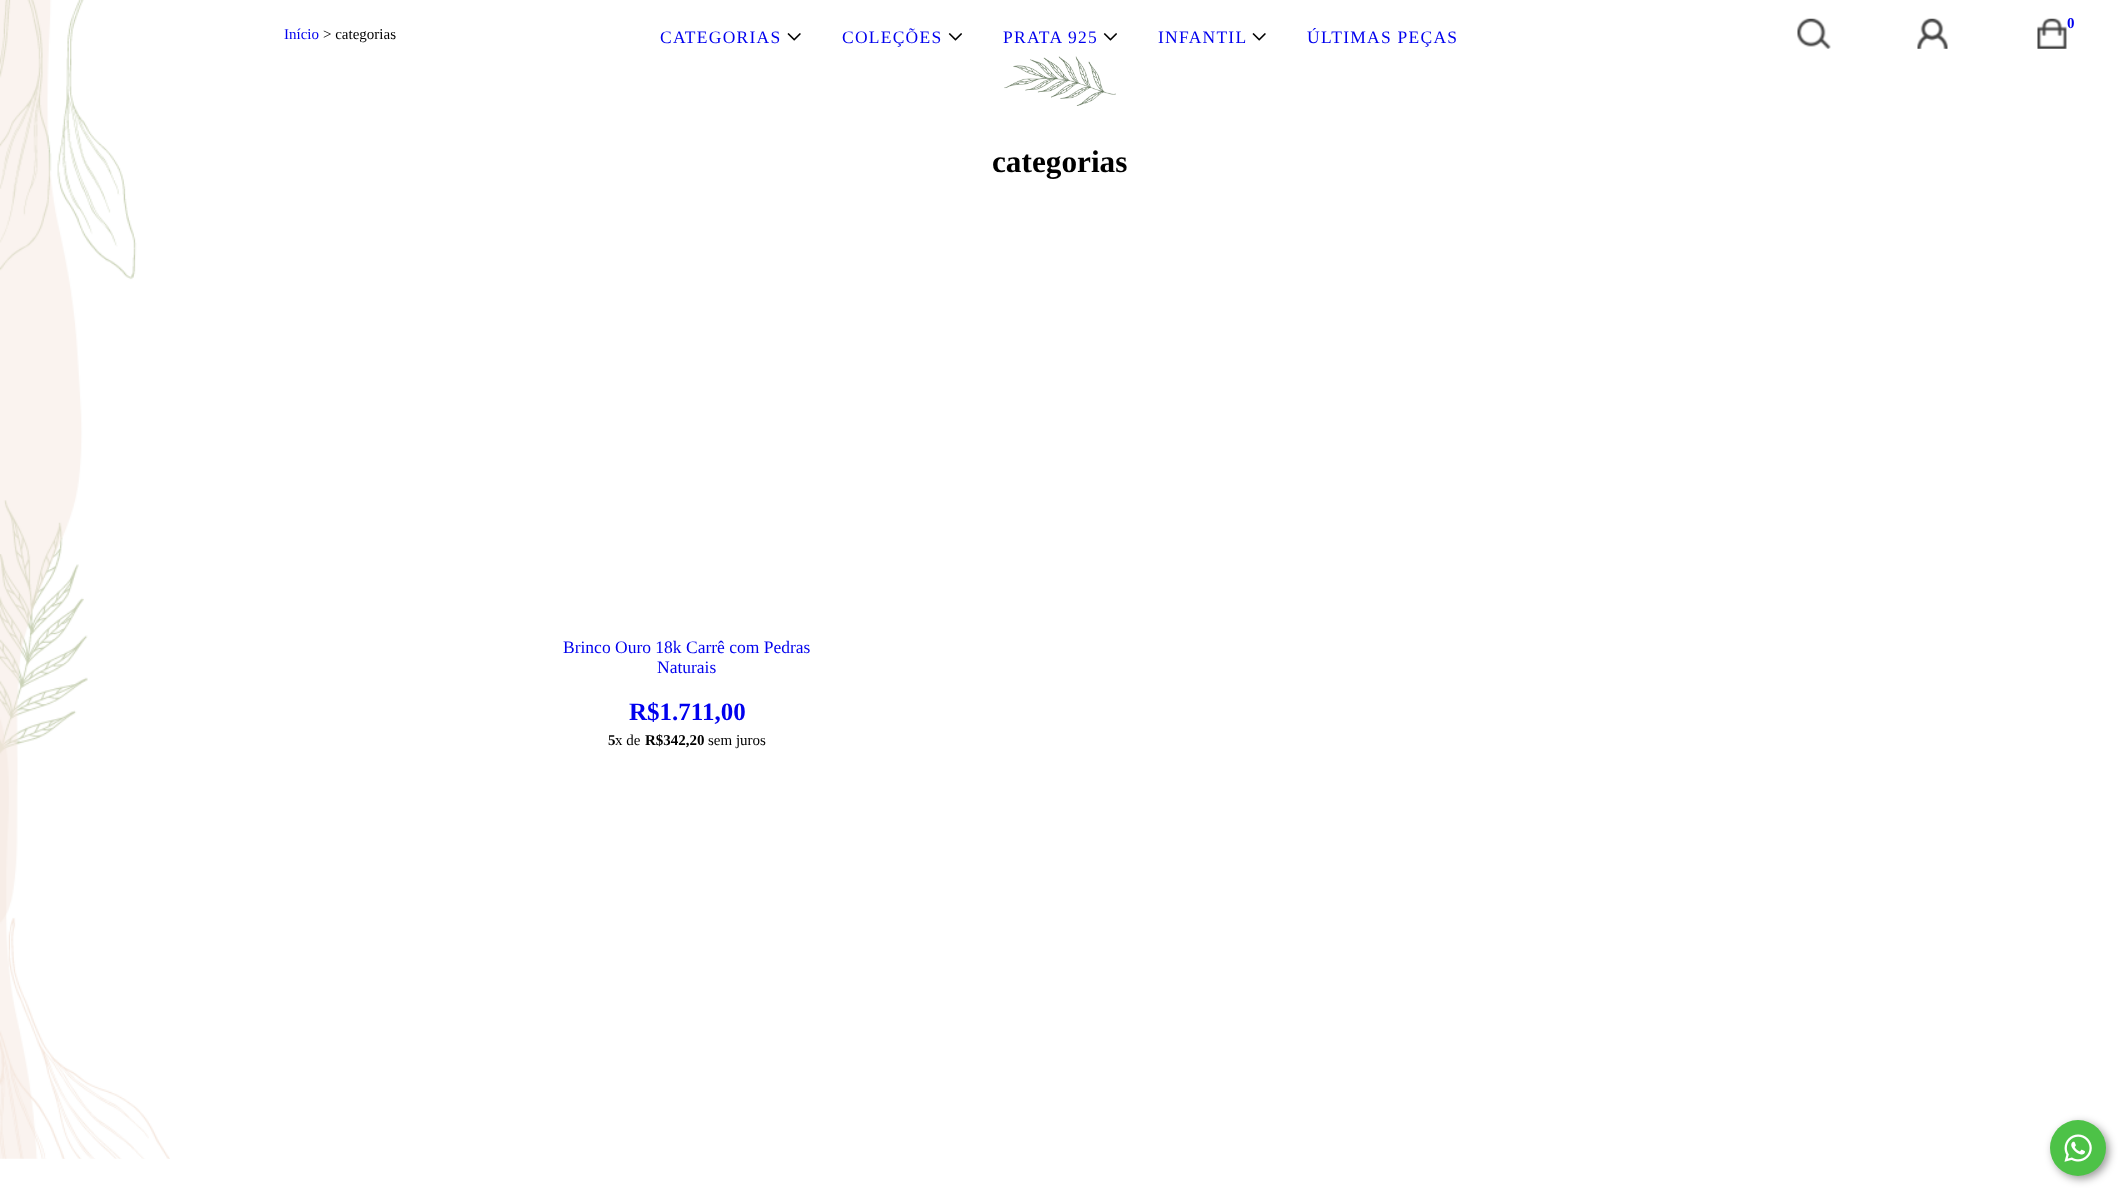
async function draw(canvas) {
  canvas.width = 2118
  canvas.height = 1188
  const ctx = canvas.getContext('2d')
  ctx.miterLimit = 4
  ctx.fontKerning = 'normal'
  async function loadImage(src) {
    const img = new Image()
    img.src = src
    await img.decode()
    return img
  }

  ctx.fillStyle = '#fff'
  ctx.fillRect(0, 0, 2118, 1188)
  ctx.drawImage(await loadImage('image0.png'), 1797, 18, 34, 31)
  ctx.drawImage(await loadImage('image1.png'), 1917, 18, 31, 31)
  ctx.drawImage(await loadImage('image2.png'), 2037, 18, 30, 31)
  ctx.font = 'bold 15px Liberation Serif'
  ctx.fillStyle = '#00e'
  ctx.fillText('0', 2067, 28)
  ctx.letterSpacing = '1.25px'
  ctx.font = '17.5px Liberation Serif'
  ctx.fillText('CATEGORIAS', 660, 43)
  ctx.drawImage(await loadImage('image3.png'), 787, 33, 14, 8)
  ctx.fillText('COLEÇÕES', 842, 43)
  ctx.drawImage(await loadImage('image4.png'), 948, 33, 14, 8)
  ctx.fillText('PRATA 925', 1003, 43)
  ctx.drawImage(await loadImage('image4.png'), 1103, 33, 14, 8)
  ctx.fillText('INFANTIL', 1158, 43)
  ctx.drawImage(await loadImage('image3.png'), 1252, 33, 14, 8)
  ctx.fillText('ÚLTIMAS PEÇAS', 1307, 43)
  ctx.drawImage(await loadImage('image5.png'), 0, 0, 170, 1159)
  ctx.letterSpacing = '0px'
  ctx.font = '15px Liberation Serif'
  ctx.fillText('Início', 284, 39)
  ctx.fillStyle = '#000'
  ctx.fillText('> categorias', 323, 39)
  ctx.drawImage(await loadImage('image6.png'), 1004, 56, 112, 50)
  ctx.font = 'bold 31.25px Liberation Serif'
  ctx.fillText('categorias', 992, 172)
  ctx.font = '17.5px Liberation Serif'
  ctx.fillStyle = '#00e'
  ctx.fillText('Brinco Ouro 18k Carrê com Pedras', 563, 653)
  ctx.fillText('Naturais', 657, 673)
  ctx.font = 'bold 25px Liberation Serif'
  ctx.fillText('R$1.711,00', 629, 720)
  ctx.font = 'bold 15px Liberation Serif'
  ctx.fillStyle = '#000'
  ctx.fillText('5', 608, 745)
  ctx.font = '15px Liberation Serif'
  ctx.fillText('x de', 615, 745)
  ctx.font = 'bold 15px Liberation Serif'
  ctx.fillText('R$342,20', 645, 745)
  ctx.font = '15px Liberation Serif'
  ctx.fillText('sem juros', 708, 745)
  ctx.fillStyle = '#00000066'
  ctx.filter = 'blur(4px)'
  ctx.beginPath()
  ctx.roundRect(2053, 1123, 56, 56, 28)
  ctx.fill()
  ctx.filter = 'none'
  ctx.fillStyle = '#4dc247'
  ctx.beginPath()
  ctx.arc(2078, 1148, 28, 0, 2 * Math.PI)
  ctx.fill()
  ctx.drawImage(await loadImage('image7.png'), 2064, 1134, 28, 28)
}

draw(document.querySelector('canvas'))
